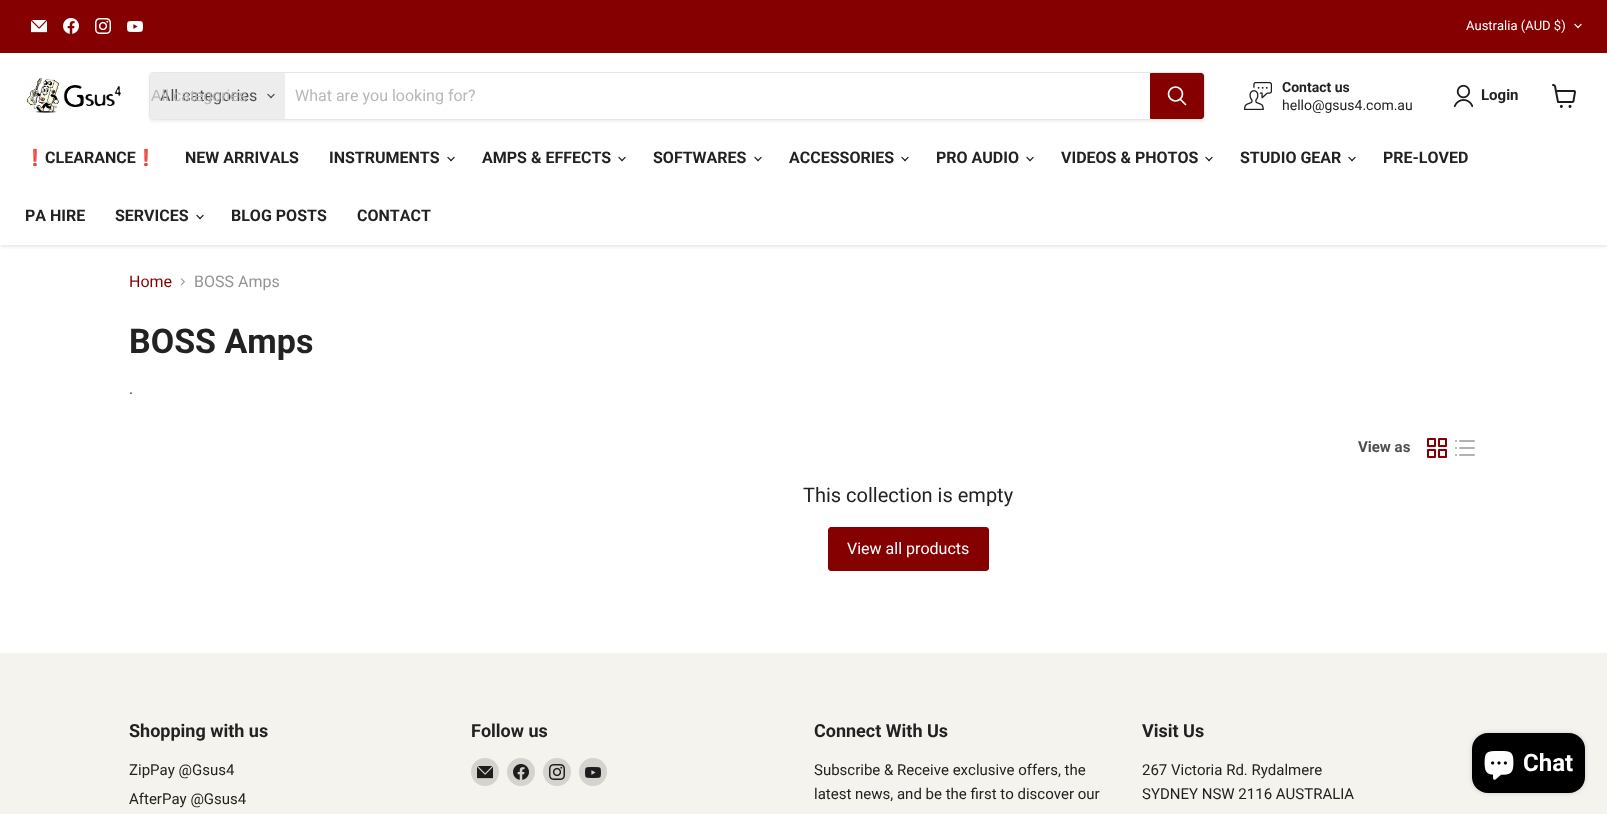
async function draw(canvas) {
  canvas.width = 1607
  canvas.height = 814
  const ctx = canvas.getContext('2d')
  ctx.miterLimit = 4
  ctx.fontKerning = 'none'
  async function loadImage(src) {
    const img = new Image()
    img.src = src
    await img.decode()
    return img
  }

  ctx.fillStyle = '#fff'
  ctx.fillRect(0, 0, 1607, 814)
  ctx.save()
  ctx.beginPath()
  ctx.rect(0, 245, 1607, 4)
  ctx.clip()
  ctx.fillStyle = '#80808040'
  ctx.filter = 'blur(2px)'
  ctx.beginPath()
  ctx.rect(0, 54, 1607, 192)
  ctx.fill()
  ctx.filter = 'none'
  ctx.restore()
  ctx.fillStyle = '#850000'
  ctx.fillRect(0, 0, 1607, 53)
  ctx.drawImage(await loadImage('image0.png'), 31, 20, 16, 13)
  ctx.drawImage(await loadImage('image1.png'), 63, 18, 16, 16)
  ctx.drawImage(await loadImage('image2.png'), 95, 18, 16, 16)
  ctx.drawImage(await loadImage('image3.png'), 127, 21, 16, 11)
  ctx.font = '13px Roboto'
  ctx.fillStyle = '#fff'
  ctx.fillText('Australia (AUD $)', 1466, 30)
  ctx.drawImage(await loadImage('image4.png'), 1574, 23, 8, 6)
  ctx.drawImage(await loadImage('image5.png'), 26, 78, 95, 35)
  ctx.save()
  ctx.beginPath()
  ctx.moveTo(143, 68)
  ctx.lineTo(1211, 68)
  ctx.lineTo(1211, 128)
  ctx.lineTo(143, 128)
  ctx.closePath()
  ctx.moveTo(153, 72)
  ctx.lineTo(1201, 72)
  ctx.bezierCurveTo(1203, 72, 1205, 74, 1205, 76)
  ctx.lineTo(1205, 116)
  ctx.bezierCurveTo(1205, 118, 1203, 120, 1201, 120)
  ctx.lineTo(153, 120)
  ctx.bezierCurveTo(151, 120, 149, 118, 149, 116)
  ctx.lineTo(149, 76)
  ctx.bezierCurveTo(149, 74, 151, 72, 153, 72)
  ctx.closePath()
  ctx.clip('evenodd')
  ctx.fillStyle = '#8080801c'
  ctx.filter = 'blur(1.5px)'
  ctx.beginPath()
  ctx.roundRect(149, 74, 1056, 48, 4)
  ctx.fill()
  ctx.filter = 'none'
  ctx.restore()
  ctx.beginPath()
  ctx.roundRect(149.5, 72.5, 1055, 47, 3.5)
  ctx.strokeStyle = '#80808033'
  ctx.stroke()
  ctx.fillStyle = '#ededed'
  ctx.beginPath()
  ctx.roundRect(150, 73, 135, 46, [3, 0, 0, 3])
  ctx.fill()
  ctx.font = '16px Roboto'
  ctx.fillStyle = '#4d4d4d'
  ctx.fillText('All categories', 160, 101)
  ctx.font = '16px Liberation Sans'
  ctx.fillStyle = '#b8b8b8'
  ctx.fillText('All categories', 151, 101)
  ctx.drawImage(await loadImage('image6.png'), 267, 93, 8, 6)
  ctx.font = '16px Roboto'
  ctx.fillText('What are you looking for?', 295, 101)
  ctx.fillStyle = '#850000'
  ctx.beginPath()
  ctx.roundRect(1150.5, 73.5, 53, 45, [0, 2.5, 2.5, 0])
  ctx.fill()
  ctx.strokeStyle = '#850000'
  ctx.stroke()
  ctx.beginPath()
  ctx.moveTo(1185.5, 104.5)
  ctx.lineTo(1180.5, 99.5)
  ctx.strokeStyle = '#fff'
  ctx.lineWidth = 1.7
  ctx.lineCap = 'round'
  ctx.stroke()
  ctx.beginPath()
  ctx.arc(1175.5, 94, 7, 0, 2 * Math.PI)
  ctx.stroke()
  ctx.drawImage(await loadImage('image7.png'), 1244, 82, 28, 28)
  ctx.font = 'bold 14px Roboto'
  ctx.fillStyle = '#222'
  ctx.fillText('Contact us', 1282, 92)
  ctx.font = '14px Roboto'
  ctx.fillText('hello@gsus4.com.au', 1282, 110)
  ctx.drawImage(await loadImage('image8.png'), 1453, 84, 20, 24)
  ctx.font = 'bold 15px Roboto'
  ctx.fillText('Login', 1481, 100)
  ctx.drawImage(await loadImage('image9.png'), 1552, 84, 24, 24)
  ctx.font = 'bold 16px Noto Color Emoji'
  ctx.fillText('❗', 25, 163)
  ctx.font = 'bold 16px Roboto'
  ctx.fillText('CLEARANCE', 45, 163)
  ctx.font = 'bold 16px Noto Color Emoji'
  ctx.fillText('❗', 136, 163)
  ctx.font = 'bold 16px Roboto'
  ctx.fillText('NEW ARRIVALS', 185, 163)
  ctx.fillText('INSTRUMENTS', 329, 163)
  ctx.drawImage(await loadImage('image10.png'), 447, 156, 8, 6)
  ctx.fillText('AMPS & EFFECTS', 482, 163)
  ctx.drawImage(await loadImage('image10.png'), 618, 156, 8, 6)
  ctx.fillText('SOFTWARES', 653, 163)
  ctx.drawImage(await loadImage('image10.png'), 754, 156, 8, 6)
  ctx.fillText('ACCESSORIES', 789, 163)
  ctx.drawImage(await loadImage('image10.png'), 901, 156, 8, 6)
  ctx.fillText('PRO AUDIO', 936, 163)
  ctx.drawImage(await loadImage('image10.png'), 1026, 156, 8, 6)
  ctx.fillText('VIDEOS & PHOTOS', 1061, 163)
  ctx.drawImage(await loadImage('image10.png'), 1205, 156, 8, 6)
  ctx.fillText('STUDIO GEAR', 1240, 163)
  ctx.drawImage(await loadImage('image10.png'), 1348, 156, 8, 6)
  ctx.fillText('PRE-LOVED', 1383, 163)
  ctx.fillText('PA HIRE', 25, 221)
  ctx.fillText('SERVICES', 115, 221)
  ctx.drawImage(await loadImage('image10.png'), 196, 214, 8, 6)
  ctx.fillText('BLOG POSTS', 231, 221)
  ctx.fillText('CONTACT', 357, 221)
  ctx.font = '16px Roboto'
  ctx.fillStyle = '#850000'
  ctx.fillText('Home', 129, 287)
  ctx.drawImage(await loadImage('image11.png'), 180, 278, 5, 8)
  ctx.fillStyle = '#949494'
  ctx.fillText('BOSS Amps', 194, 287)
  ctx.font = 'bold 34px Roboto'
  ctx.fillStyle = '#222'
  ctx.fillText('BOSS Amps', 129, 353)
  ctx.font = '16px Roboto'
  ctx.fillStyle = '#4d4d4d'
  ctx.fillText('.', 129, 394)
  ctx.font = 'bold 15px Roboto'
  ctx.fillText('View as', 1358, 452)
  ctx.drawImage(await loadImage('image12.png'), 1427, 438, 20, 20)
  ctx.drawImage(await loadImage('image13.png'), 1455, 440, 20, 16)
  ctx.font = '20px Roboto'
  ctx.fillStyle = '#222'
  ctx.fillText('This collection is empty', 803, 502)
  ctx.fillStyle = '#850000'
  ctx.beginPath()
  ctx.roundRect(828.5, 527.5, 160, 43, 2.5)
  ctx.fill()
  ctx.strokeStyle = '#850000'
  ctx.lineWidth = 1
  ctx.stroke()
  ctx.font = '16px Roboto'
  ctx.fillStyle = '#fff'
  ctx.fillText('View all products', 847, 554)
  ctx.fillStyle = '#f5f3ed'
  ctx.fillRect(0, 653, 1607, 161)
  ctx.font = 'bold 18px Roboto'
  ctx.fillStyle = '#222'
  ctx.fillText('Shopping with us', 129, 737)
  ctx.font = '15px Roboto'
  ctx.fillText('ZipPay @Gsus4', 129, 775)
  ctx.fillText('AfterPay @Gsus4', 129, 804)
  ctx.font = 'bold 18px Roboto'
  ctx.fillText('Follow us', 471, 737)
  ctx.fillStyle = '#d5d3ce'
  ctx.beginPath()
  ctx.arc(485, 772, 14, 0, 2 * Math.PI)
  ctx.fill()
  ctx.drawImage(await loadImage('image14.png'), 477, 766, 16, 13)
  ctx.beginPath()
  ctx.arc(521, 772, 14, 0, 2 * Math.PI)
  ctx.fill()
  ctx.drawImage(await loadImage('image15.png'), 513, 764, 16, 16)
  ctx.beginPath()
  ctx.arc(557, 772, 14, 0, 2 * Math.PI)
  ctx.fill()
  ctx.drawImage(await loadImage('image16.png'), 549, 764, 16, 16)
  ctx.beginPath()
  ctx.arc(593, 772, 14, 0, 2 * Math.PI)
  ctx.fill()
  ctx.drawImage(await loadImage('image17.png'), 585, 767, 16, 11)
  ctx.fillStyle = '#222'
  ctx.fillText('Connect With Us', 814, 737)
  ctx.font = '15px Roboto'
  ctx.fillText('Subscribe & Receive exclusive offers, the', 814, 775)
  ctx.fillText('latest news, and be the first to discover our', 814, 799)
  ctx.font = 'bold 18px Roboto'
  ctx.fillText('Visit Us', 1142, 737)
  ctx.font = '15px Roboto'
  ctx.fillText('267 Victoria Rd. Rydalmere', 1142, 775)
  ctx.fillText('SYDNEY NSW 2116 AUSTRALIA', 1142, 799)
  ctx.fillStyle = '#00000026'
  ctx.filter = 'blur(2.5px)'
  ctx.beginPath()
  ctx.roundRect(1472, 733, 113, 60, 16)
  ctx.fill()
  ctx.filter = 'none'
  ctx.fillStyle = '#000'
  ctx.beginPath()
  ctx.roundRect(1472, 733, 113, 60, 16)
  ctx.fill()
  ctx.drawImage(await loadImage('image18.png'), 1484, 751, 30, 29)
  ctx.font = 'bold 24px Roboto'
  ctx.fillStyle = '#fff'
  ctx.fillText('Chat', 1523, 771)
}

draw(document.querySelector('canvas'))
